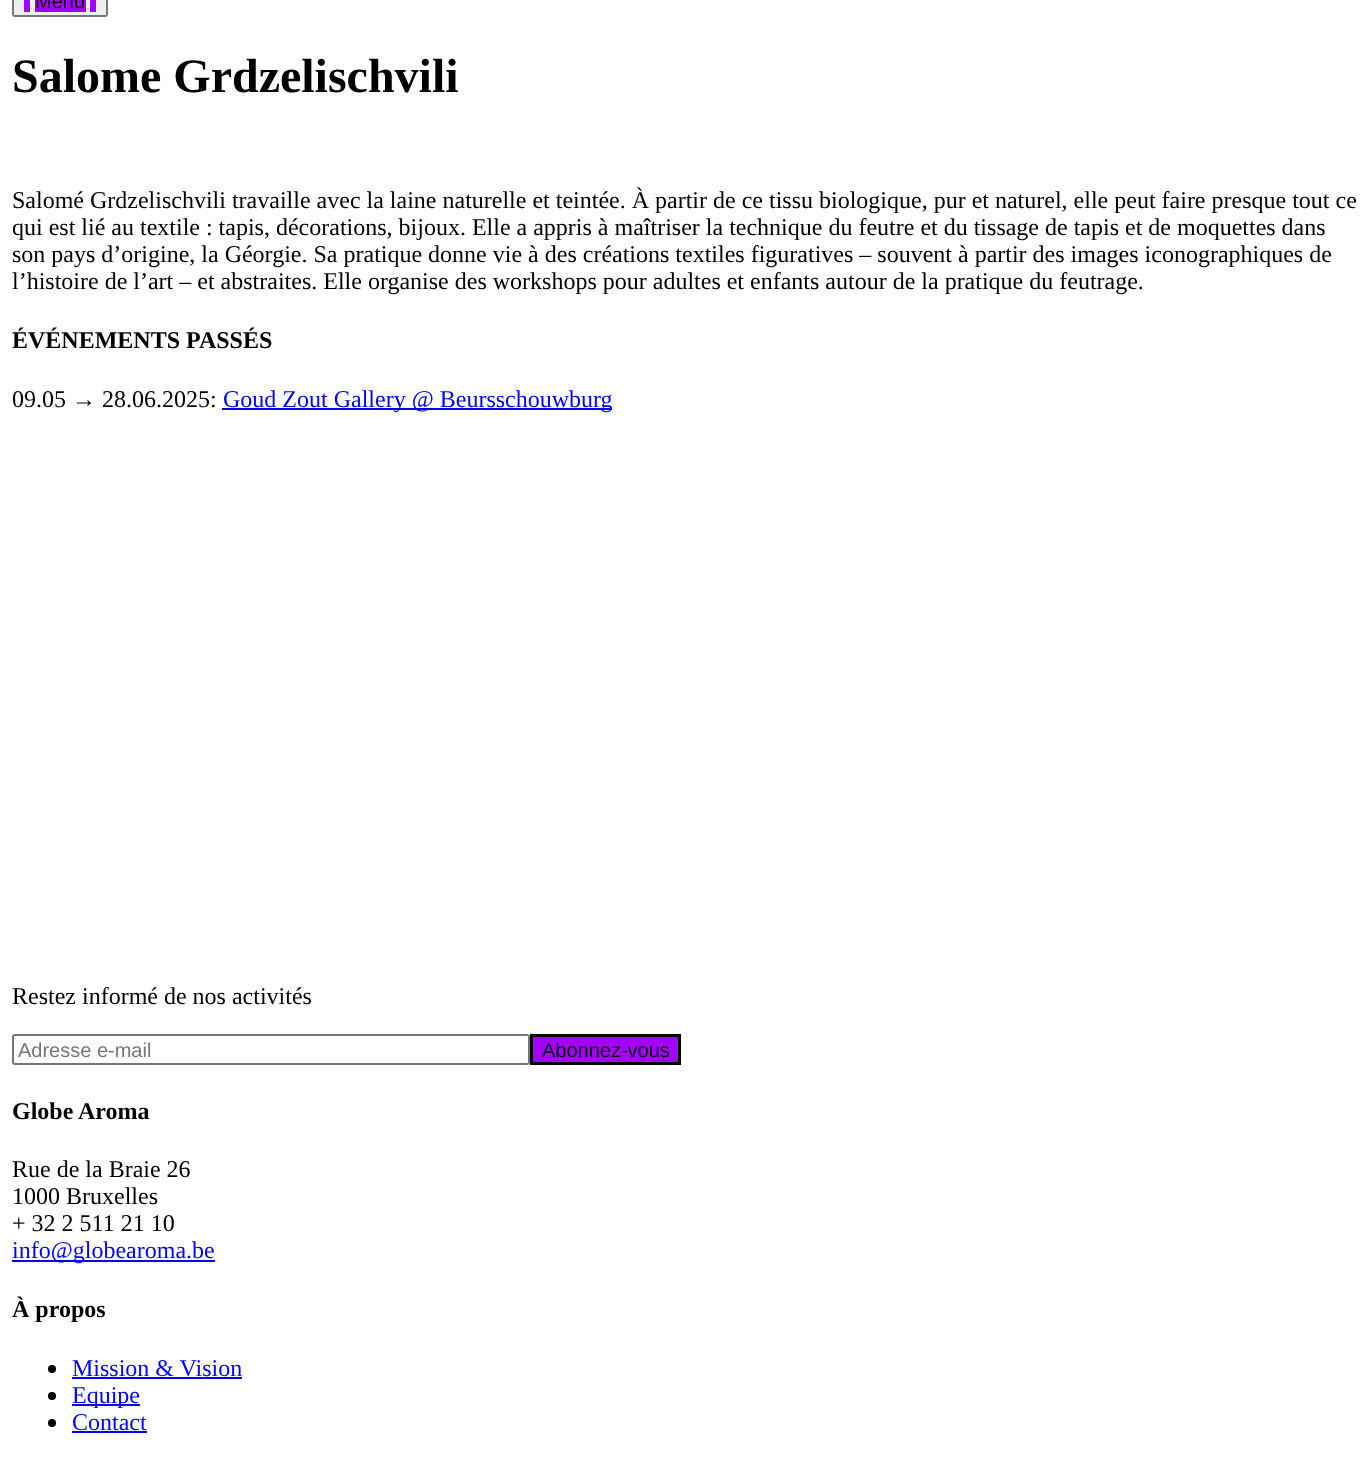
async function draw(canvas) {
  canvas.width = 1369
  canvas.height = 1474
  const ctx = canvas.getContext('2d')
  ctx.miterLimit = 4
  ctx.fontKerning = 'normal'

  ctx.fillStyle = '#fff'
  ctx.fillRect(0, 0, 1369, 1474)
  ctx.fillStyle = '#efefef'
  ctx.beginPath()
  ctx.roundRect(13, -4, 94, 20, 2)
  ctx.fill()
  ctx.strokeStyle = '#767676'
  ctx.lineWidth = 2
  ctx.stroke()
  ctx.fillStyle = '#a500ff'
  ctx.fillRect(24, 0, 6, 12)
  ctx.fillRect(35, 0, 51, 12)
  ctx.font = '20px Liberation Sans'
  ctx.fillStyle = '#000'
  ctx.fillText('Menu', 35, 8)
  ctx.fillStyle = '#a500ff'
  ctx.fillRect(90, 0, 6, 12)
  ctx.font = 'bold 48px Liberation Serif'
  ctx.fillStyle = '#000'
  ctx.fillText('Salome Grdzelischvili', 12, 92)
  ctx.font = '24px Liberation Serif'
  ctx.fillText('Salomé Grdzelischvili travaille avec la laine naturelle et teintée. À partir de ce tissu biologique, pur et naturel, elle peut faire presque tout ce', 12, 208)
  ctx.fillText('qui est lié au textile : tapis, décorations, bijoux. Elle a appris à maîtriser la technique du feutre et du tissage de tapis et de moquettes dans', 12, 235)
  ctx.fillText('son pays d’origine, la Géorgie. Sa pratique donne vie à des créations textiles figuratives – souvent à partir des images iconographiques de', 12, 262)
  ctx.fillText('l’histoire de l’art – et abstraites. Elle organise des workshops pour adultes et enfants autour de la pratique du feutrage.', 12, 289)
  ctx.font = 'bold 24px Liberation Serif'
  ctx.fillText('ÉVÉNEMENTS PASSÉS', 12, 348)
  ctx.font = '24px Liberation Serif'
  ctx.fillText('09.05 → 28.06.2025:', 12, 407)
  ctx.fillStyle = '#00e'
  ctx.fillRect(222, 408, 390, 2)
  ctx.fillText('Goud Zout Gallery @ Beursschouwburg', 223, 407)
  ctx.fillStyle = '#000'
  ctx.fillText('Restez informé de nos activités', 12, 1004)
  ctx.beginPath()
  ctx.roundRect(13, 1035, 516, 29, 2)
  ctx.stroke()
  ctx.font = '20px Liberation Sans'
  ctx.fillStyle = '#757575'
  ctx.fillText('Adresse e-mail', 18, 1057)
  ctx.fillStyle = '#a500ff'
  ctx.beginPath()
  ctx.rect(531.5, 1035.5, 148, 28)
  ctx.fill()
  ctx.strokeStyle = '#000'
  ctx.lineWidth = 3
  ctx.stroke()
  ctx.fillStyle = '#000'
  ctx.fillText('Abonnez-vous', 542, 1057)
  ctx.font = 'bold 24px Liberation Serif'
  ctx.fillText('Globe Aroma', 12, 1119)
  ctx.font = '24px Liberation Serif'
  ctx.fillText('Rue de la Braie 26', 12, 1177)
  ctx.fillText('1000 Bruxelles', 12, 1204)
  ctx.fillText('+ 32 2 511 21 10', 12, 1231)
  ctx.fillStyle = '#00f'
  ctx.fillRect(12, 1260, 203, 2)
  ctx.fillText('info@globearoma.be', 12, 1258)
  ctx.font = 'bold 24px Liberation Serif'
  ctx.fillStyle = '#000'
  ctx.fillText('À propos', 12, 1317)
  ctx.beginPath()
  ctx.arc(52, 1369, 4, 0, 2 * Math.PI)
  ctx.fill()
  ctx.font = '24px Liberation Serif'
  ctx.fillStyle = '#00f'
  ctx.fillText('Mission & Vision', 72, 1376)
  ctx.fillRect(72, 1377, 170, 2)
  ctx.fillStyle = '#000'
  ctx.beginPath()
  ctx.arc(52, 1396, 4, 0, 2 * Math.PI)
  ctx.fill()
  ctx.fillStyle = '#00f'
  ctx.fillRect(72, 1404, 68, 2)
  ctx.fillText('Equipe', 72, 1403)
  ctx.fillStyle = '#000'
  ctx.beginPath()
  ctx.arc(52, 1423, 4, 0, 2 * Math.PI)
  ctx.fill()
  ctx.fillStyle = '#00f'
  ctx.fillText('Contact', 72, 1430)
  ctx.fillRect(72, 1431, 75, 2)
}

draw(document.querySelector('canvas'))
